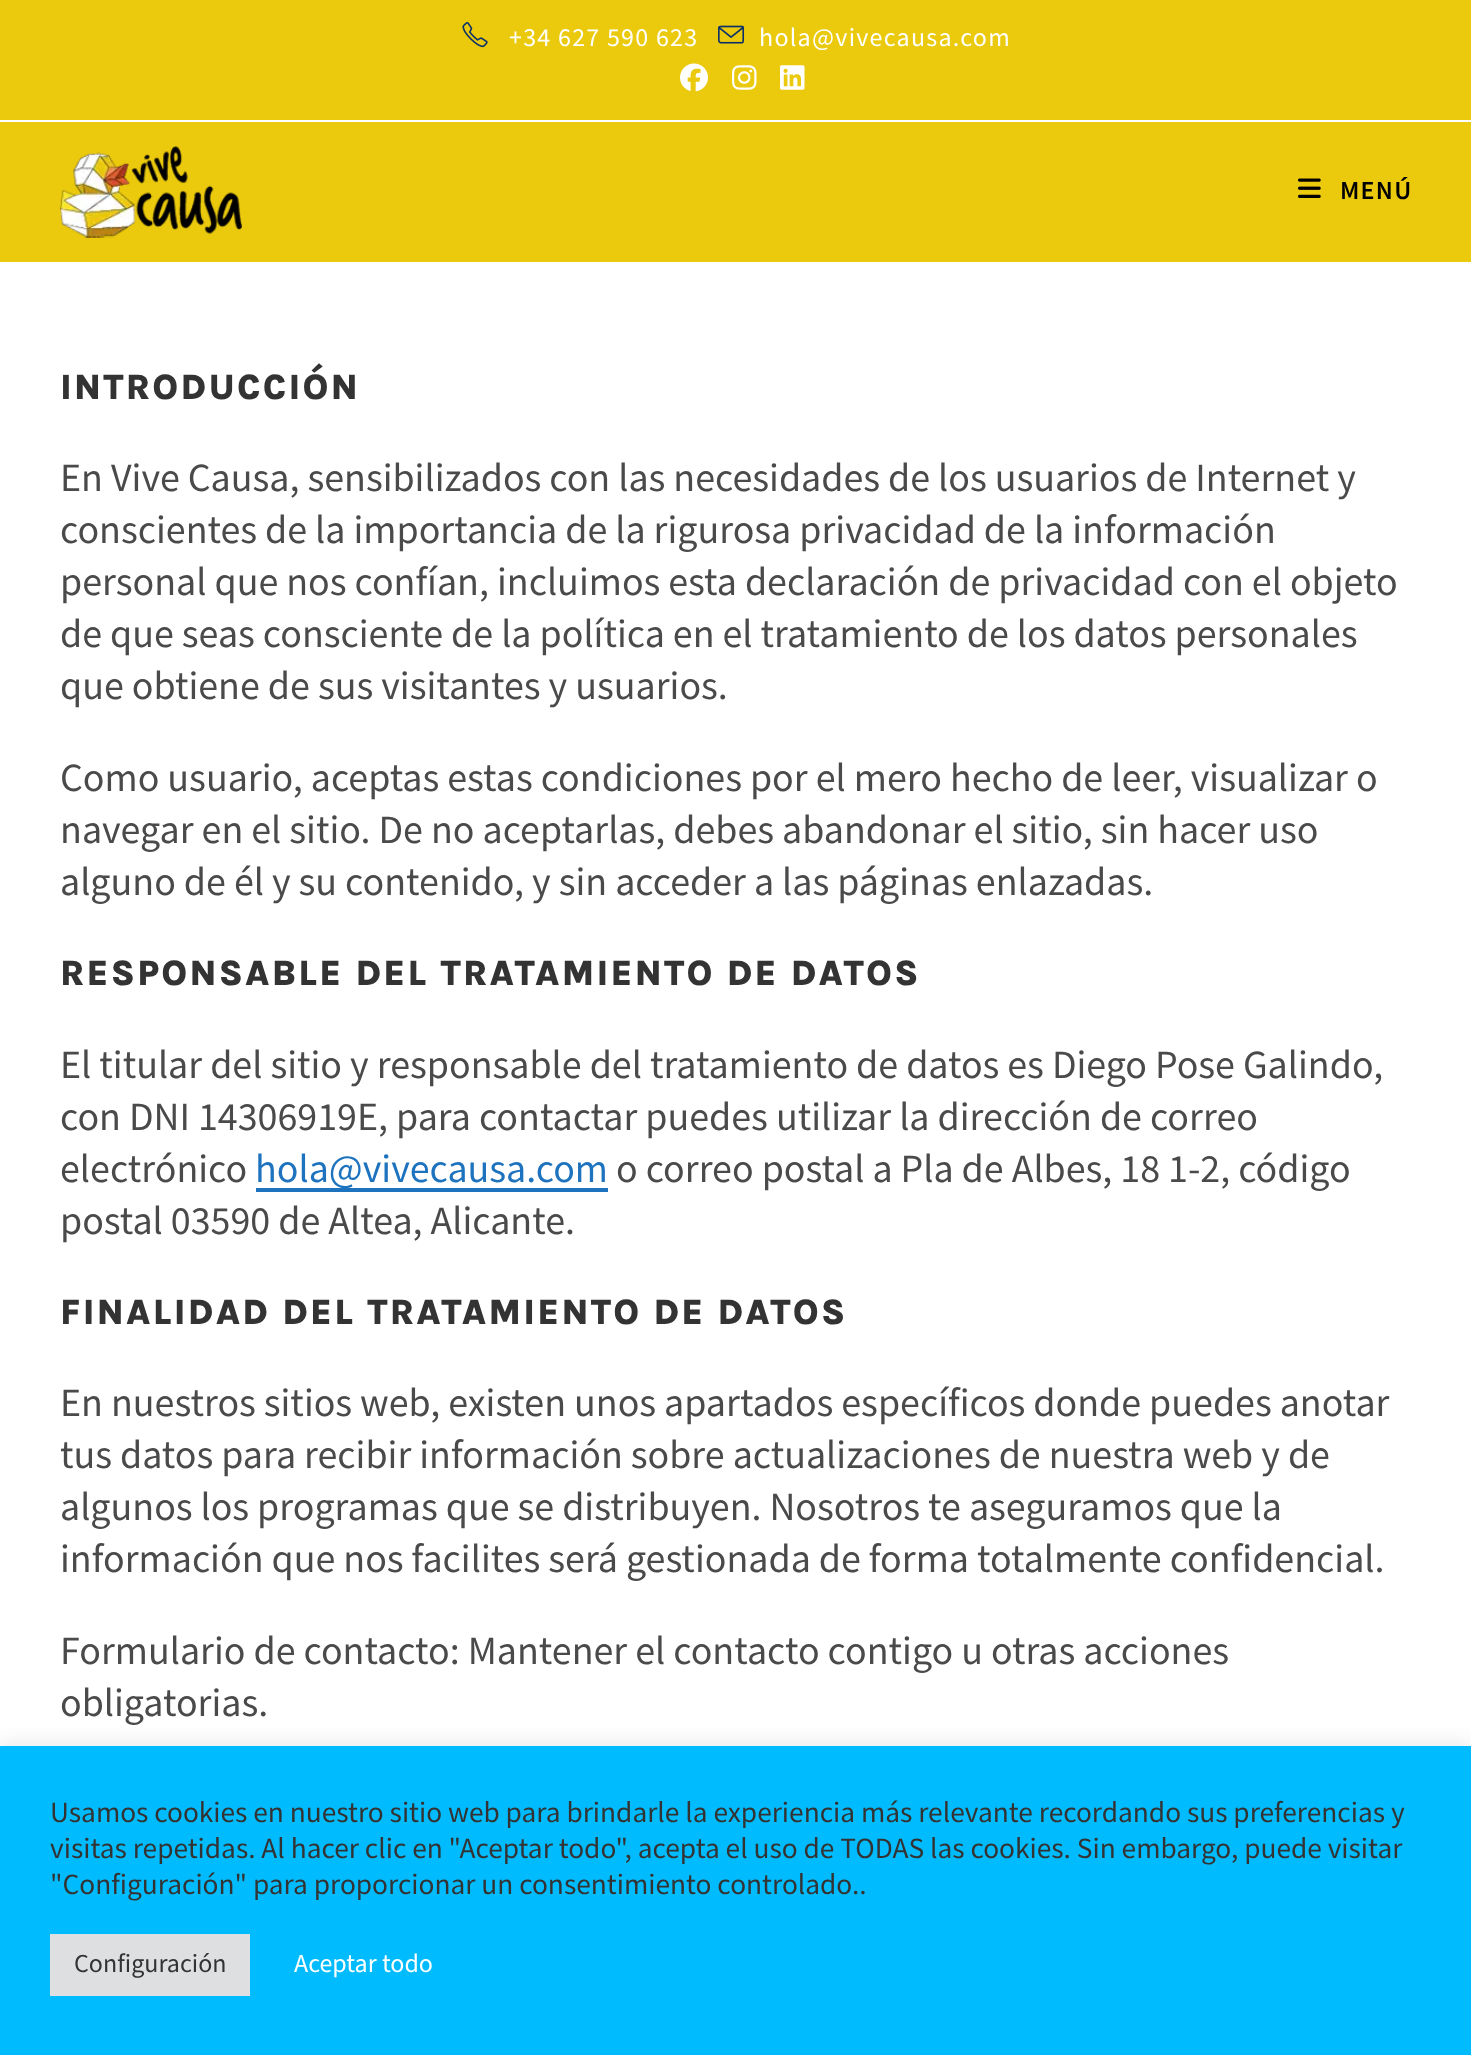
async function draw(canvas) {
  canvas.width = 1471
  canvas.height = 2055
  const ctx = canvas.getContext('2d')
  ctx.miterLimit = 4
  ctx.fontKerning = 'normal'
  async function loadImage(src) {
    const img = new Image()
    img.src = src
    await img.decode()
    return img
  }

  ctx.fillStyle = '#fff'
  ctx.fillRect(0, 0, 1471, 2055)
  ctx.fillStyle = '#ebc90d'
  ctx.fillRect(0, 0, 1471, 120)
  ctx.drawImage(await loadImage('image0.png'), 462, 22, 26, 26)
  ctx.letterSpacing = '1.25px'
  ctx.font = '26px Mada'
  ctx.fillStyle = '#fff'
  ctx.fillText('+34 627 590 623', 509, 46)
  ctx.drawImage(await loadImage('image1.png'), 718, 25, 27, 19)
  ctx.fillText('hola@vivecausa.com', 759, 46)
  ctx.drawImage(await loadImage('image2.png'), 680, 63, 28, 29)
  ctx.drawImage(await loadImage('image3.png'), 732, 65, 25, 25)
  ctx.drawImage(await loadImage('image4.png'), 780, 65, 25, 25)
  ctx.fillStyle = '#ebc90d'
  ctx.fillRect(0, 122, 1471, 140)
  ctx.drawImage(await loadImage('image5.png'), 60, 146, 182, 92)
  ctx.drawImage(await loadImage('image6.png'), 1298, 178, 23, 20)
  ctx.font = '600 26px Mada'
  ctx.fillStyle = '#000'
  ctx.fillText('MENÚ', 1340, 199)
  ctx.letterSpacing = '2.2px'
  ctx.font = '800 36px Karla'
  ctx.fillStyle = '#333'
  ctx.fillText('INTRODUCCIÓN', 60, 399)
  ctx.letterSpacing = '0px'
  ctx.font = '40px Mada'
  ctx.fillStyle = '#4a4a4a'
  ctx.fillText('En Vive Causa, sensibilizados con las necesidades de los usuarios de Internet y', 60, 491)
  ctx.fillText('conscientes de la importancia de la rigurosa privacidad de la información', 60, 543)
  ctx.fillText('personal que nos confían, incluimos esta declaración de privacidad con el objeto', 60, 595)
  ctx.fillText('de que seas consciente de la política en el tratamiento de los datos personales', 60, 647)
  ctx.fillText('que obtiene de sus visitantes y usuarios.', 60, 699)
  ctx.fillText('Como usuario, aceptas estas condiciones por el mero hecho de leer, visualizar o', 60, 791)
  ctx.fillText('navegar en el sitio. De no aceptarlas, debes abandonar el sitio, sin hacer uso', 60, 843)
  ctx.fillText('alguno de él y su contenido, y sin acceder a las páginas enlazadas.', 60, 895)
  ctx.letterSpacing = '2.2px'
  ctx.font = '800 36px Karla'
  ctx.fillStyle = '#333'
  ctx.fillText('RESPONSABLE DEL TRATAMIENTO DE DATOS', 60, 985)
  ctx.letterSpacing = '0px'
  ctx.font = '40px Mada'
  ctx.fillStyle = '#4a4a4a'
  ctx.fillText('El titular del sitio y responsable del tratamiento de datos es Diego Pose Galindo,', 60, 1078)
  ctx.fillText('con DNI 14306919E, para contactar puedes utilizar la dirección de correo', 60, 1130)
  ctx.fillText('electrónico', 60, 1182)
  ctx.fillStyle = '#1e73be'
  ctx.fillRect(256, 1188, 352, 4)
  ctx.fillText('hola@vivecausa.com', 255, 1182)
  ctx.fillStyle = '#4a4a4a'
  ctx.fillText('o correo postal a Pla de Albes, 18 1-2, código', 616, 1182)
  ctx.fillText('postal 03590 de Altea, Alicante.', 60, 1234)
  ctx.letterSpacing = '2.2px'
  ctx.font = '800 36px Karla'
  ctx.fillStyle = '#333'
  ctx.fillText('FINALIDAD DEL TRATAMIENTO DE DATOS', 60, 1324)
  ctx.letterSpacing = '0px'
  ctx.font = '40px Mada'
  ctx.fillStyle = '#4a4a4a'
  ctx.fillText('En nuestros sitios web, existen unos apartados específicos donde puedes anotar', 60, 1416)
  ctx.fillText('tus datos para recibir información sobre actualizaciones de nuestra web y de', 60, 1468)
  ctx.fillText('algunos los programas que se distribuyen. Nosotros te aseguramos que la', 60, 1520)
  ctx.fillText('información que nos facilites será gestionada de forma totalmente confidencial.', 60, 1572)
  ctx.fillText('Formulario de contacto: Mantener el contacto contigo u otras acciones', 60, 1664)
  ctx.fillText('obligatorias.', 60, 1716)
  ctx.fillStyle = '#acabab4d'
  ctx.filter = 'blur(10px)'
  ctx.beginPath()
  ctx.rect(0, 1744, 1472, 310)
  ctx.fill()
  ctx.filter = 'none'
  ctx.fillStyle = '#00bcff'
  ctx.fillRect(0, 1746, 1471, 309)
  ctx.font = '29.35px Mada'
  ctx.fillStyle = '#333'
  ctx.fillText('Usamos cookies en nuestro sitio web para brindarle la experiencia más relevante recordando sus preferencias y', 50, 1822)
  ctx.fillText('visitas repetidas. Al hacer clic en "Aceptar todo", acepta el uso de TODAS las cookies. Sin embargo, puede visitar', 50, 1858)
  ctx.fillText('"Configuración" para proporcionar un consentimiento controlado..', 50, 1894)
  ctx.fillStyle = '#dedfe0'
  ctx.fillRect(50, 1934, 200, 62)
  ctx.font = '26px Mada'
  ctx.fillStyle = '#333'
  ctx.fillText('Configuración', 74, 1972)
  ctx.fillStyle = '#fff'
  ctx.fillText('Aceptar todo', 294, 1972)
}

draw(document.querySelector('canvas'))
